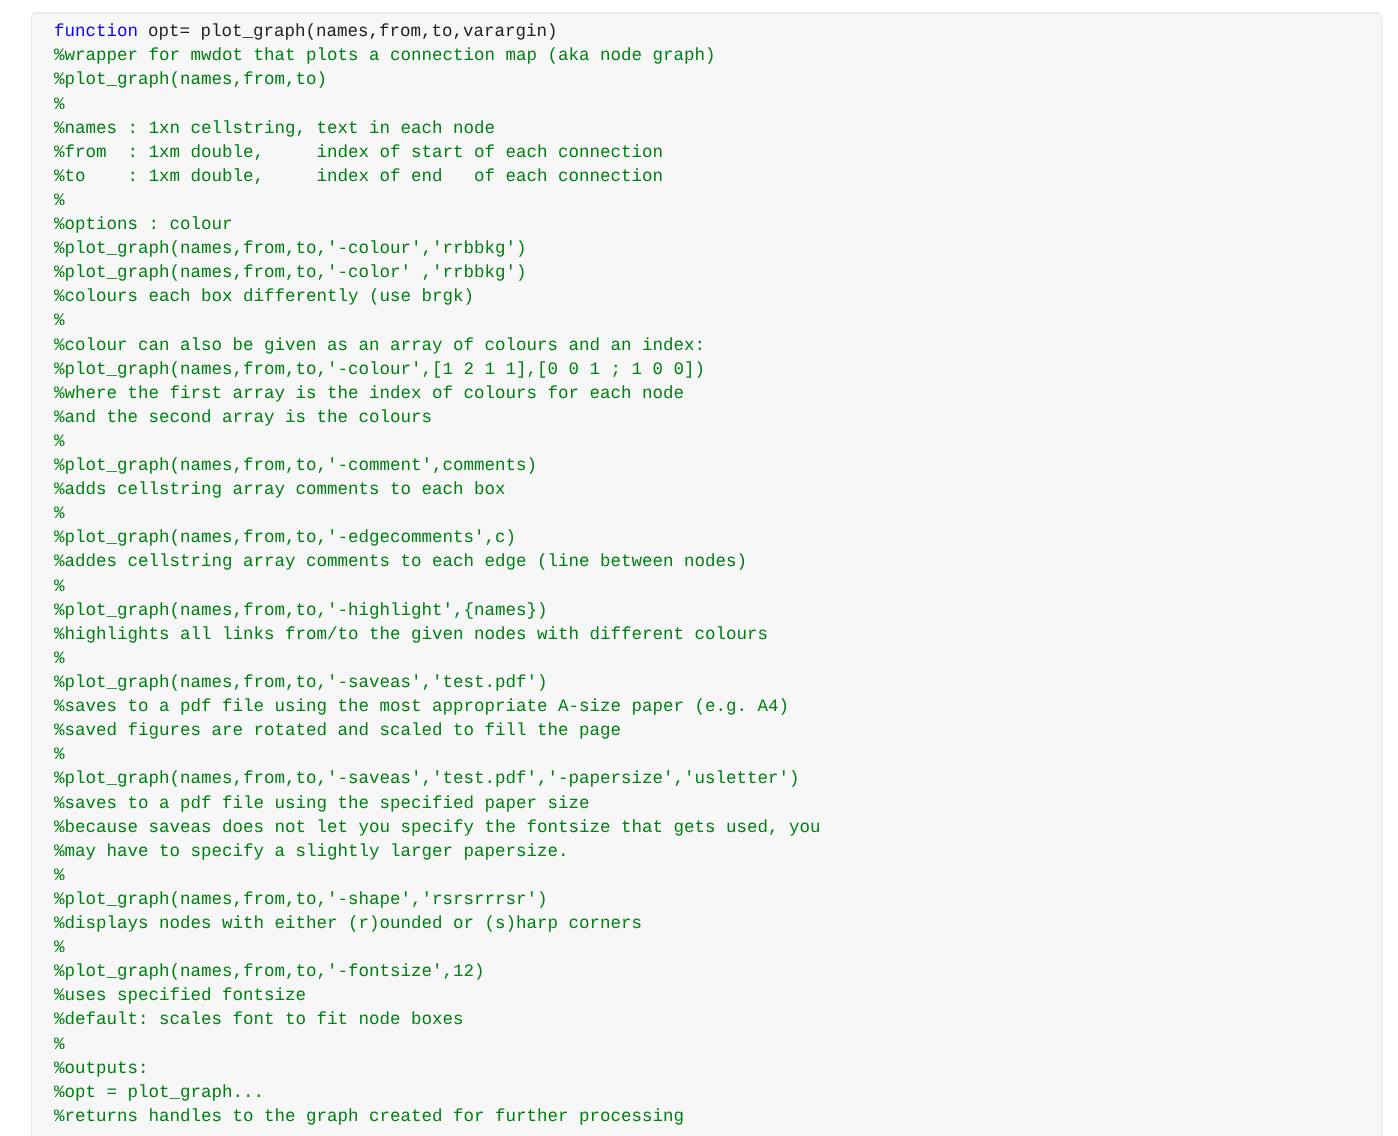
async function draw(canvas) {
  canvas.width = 1398
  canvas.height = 1136
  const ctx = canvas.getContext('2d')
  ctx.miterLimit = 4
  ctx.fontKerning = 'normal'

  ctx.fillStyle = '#fff'
  ctx.fillRect(0, 0, 1398, 1136)
  ctx.fillStyle = '#f7f7f7'
  ctx.beginPath()
  ctx.roundRect(31, 13, 1352, 1123, [5, 5, 0, 0])
  ctx.fill()
  ctx.fillStyle = '#e9e9e9'
  ctx.beginPath()
  ctx.moveTo(36, 12)
  ctx.lineTo(1378, 12)
  ctx.bezierCurveTo(1380, 12, 1382, 15, 1382, 18)
  ctx.lineTo(1382, 44)
  ctx.lineTo(31, 44)
  ctx.lineTo(31, 18)
  ctx.bezierCurveTo(31, 15, 33, 12, 36, 12)
  ctx.closePath()
  ctx.moveTo(36, 14)
  ctx.lineTo(1378, 14)
  ctx.bezierCurveTo(1380, 14, 1381, 15, 1381, 18)
  ctx.lineTo(1381, 44)
  ctx.lineTo(32, 44)
  ctx.lineTo(32, 18)
  ctx.bezierCurveTo(32, 15, 34, 14, 36, 14)
  ctx.closePath()
  ctx.fill('evenodd')
  ctx.font = '17.5px Liberation Mono'
  ctx.fillStyle = '#0e00ff'
  ctx.fillText('function', 54, 36)
  ctx.fillStyle = '#212121'
  ctx.fillText('opt= plot_graph(names,from,to,varargin)', 148, 36)
  ctx.fillStyle = '#e9e9e9'
  ctx.fillRect(1381, 44, 1, 1092)
  ctx.fillRect(31, 44, 1, 1092)
  ctx.fillStyle = '#008013'
  ctx.fillText('%wrapper for mwdot that plots a connection map (aka node graph)', 54, 60)
  ctx.fillText('%plot_graph(names,from,to)', 54, 84)
  ctx.fillText('%', 54, 109)
  ctx.fillText('%names : 1xn cellstring, text in each node', 54, 133)
  ctx.fillText('%from  : 1xm double,     index of start of each connection', 54, 157)
  ctx.fillText('%to    : 1xm double,     index of end   of each connection', 54, 181)
  ctx.fillText('%', 54, 205)
  ctx.fillText('%options : colour', 54, 229)
  ctx.fillText('%plot_graph(names,from,to,\'-colour\',\'rrbbkg\')', 54, 253)
  ctx.fillText('%plot_graph(names,from,to,\'-color\' ,\'rrbbkg\')', 54, 277)
  ctx.fillText('%colours each box differently (use brgk)', 54, 301)
  ctx.fillText('%', 54, 325)
  ctx.fillText('%colour can also be given as an array of colours and an index:', 54, 350)
  ctx.fillText('%plot_graph(names,from,to,\'-colour\',[1 2 1 1],[0 0 1 ; 1 0 0])', 54, 374)
  ctx.fillText('%where the first array is the index of colours for each node', 54, 398)
  ctx.fillText('%and the second array is the colours', 54, 422)
  ctx.fillText('%', 54, 446)
  ctx.fillText('%plot_graph(names,from,to,\'-comment\',comments)', 54, 470)
  ctx.fillText('%adds cellstring array comments to each box', 54, 494)
  ctx.fillText('%', 54, 518)
  ctx.fillText('%plot_graph(names,from,to,\'-edgecomments\',c)', 54, 542)
  ctx.fillText('%addes cellstring array comments to each edge (line between nodes)', 54, 566)
  ctx.fillText('%', 54, 591)
  ctx.fillText('%plot_graph(names,from,to,\'-highlight\',{names})', 54, 615)
  ctx.fillText('%highlights all links from/to the given nodes with different colours', 54, 639)
  ctx.fillText('%', 54, 663)
  ctx.fillText('%plot_graph(names,from,to,\'-saveas\',\'test.pdf\')', 54, 687)
  ctx.fillText('%saves to a pdf file using the most appropriate A-size paper (e.g. A4)', 54, 711)
  ctx.fillText('%saved figures are rotated and scaled to fill the page', 54, 735)
  ctx.fillText('%', 54, 759)
  ctx.fillText('%plot_graph(names,from,to,\'-saveas\',\'test.pdf\',\'-papersize\',\'usletter\')', 54, 783)
  ctx.fillText('%saves to a pdf file using the specified paper size', 54, 808)
  ctx.fillText('%because saveas does not let you specify the fontsize that gets used, you', 54, 832)
  ctx.fillText('%may have to specify a slightly larger papersize.', 54, 856)
  ctx.fillText('%', 54, 880)
  ctx.fillText('%plot_graph(names,from,to,\'-shape\',\'rsrsrrrsr\')', 54, 904)
  ctx.fillText('%displays nodes with either (r)ounded or (s)harp corners', 54, 928)
  ctx.fillText('%', 54, 952)
  ctx.fillText('%plot_graph(names,from,to,\'-fontsize\',12)', 54, 976)
  ctx.fillText('%uses specified fontsize', 54, 1000)
  ctx.fillText('%default: scales font to fit node boxes', 54, 1024)
  ctx.fillText('%', 54, 1049)
  ctx.fillText('%outputs:', 54, 1073)
  ctx.fillText('%opt = plot_graph...', 54, 1097)
  ctx.fillText('%returns handles to the graph created for further processing', 54, 1121)
}

draw(document.querySelector('canvas'))
